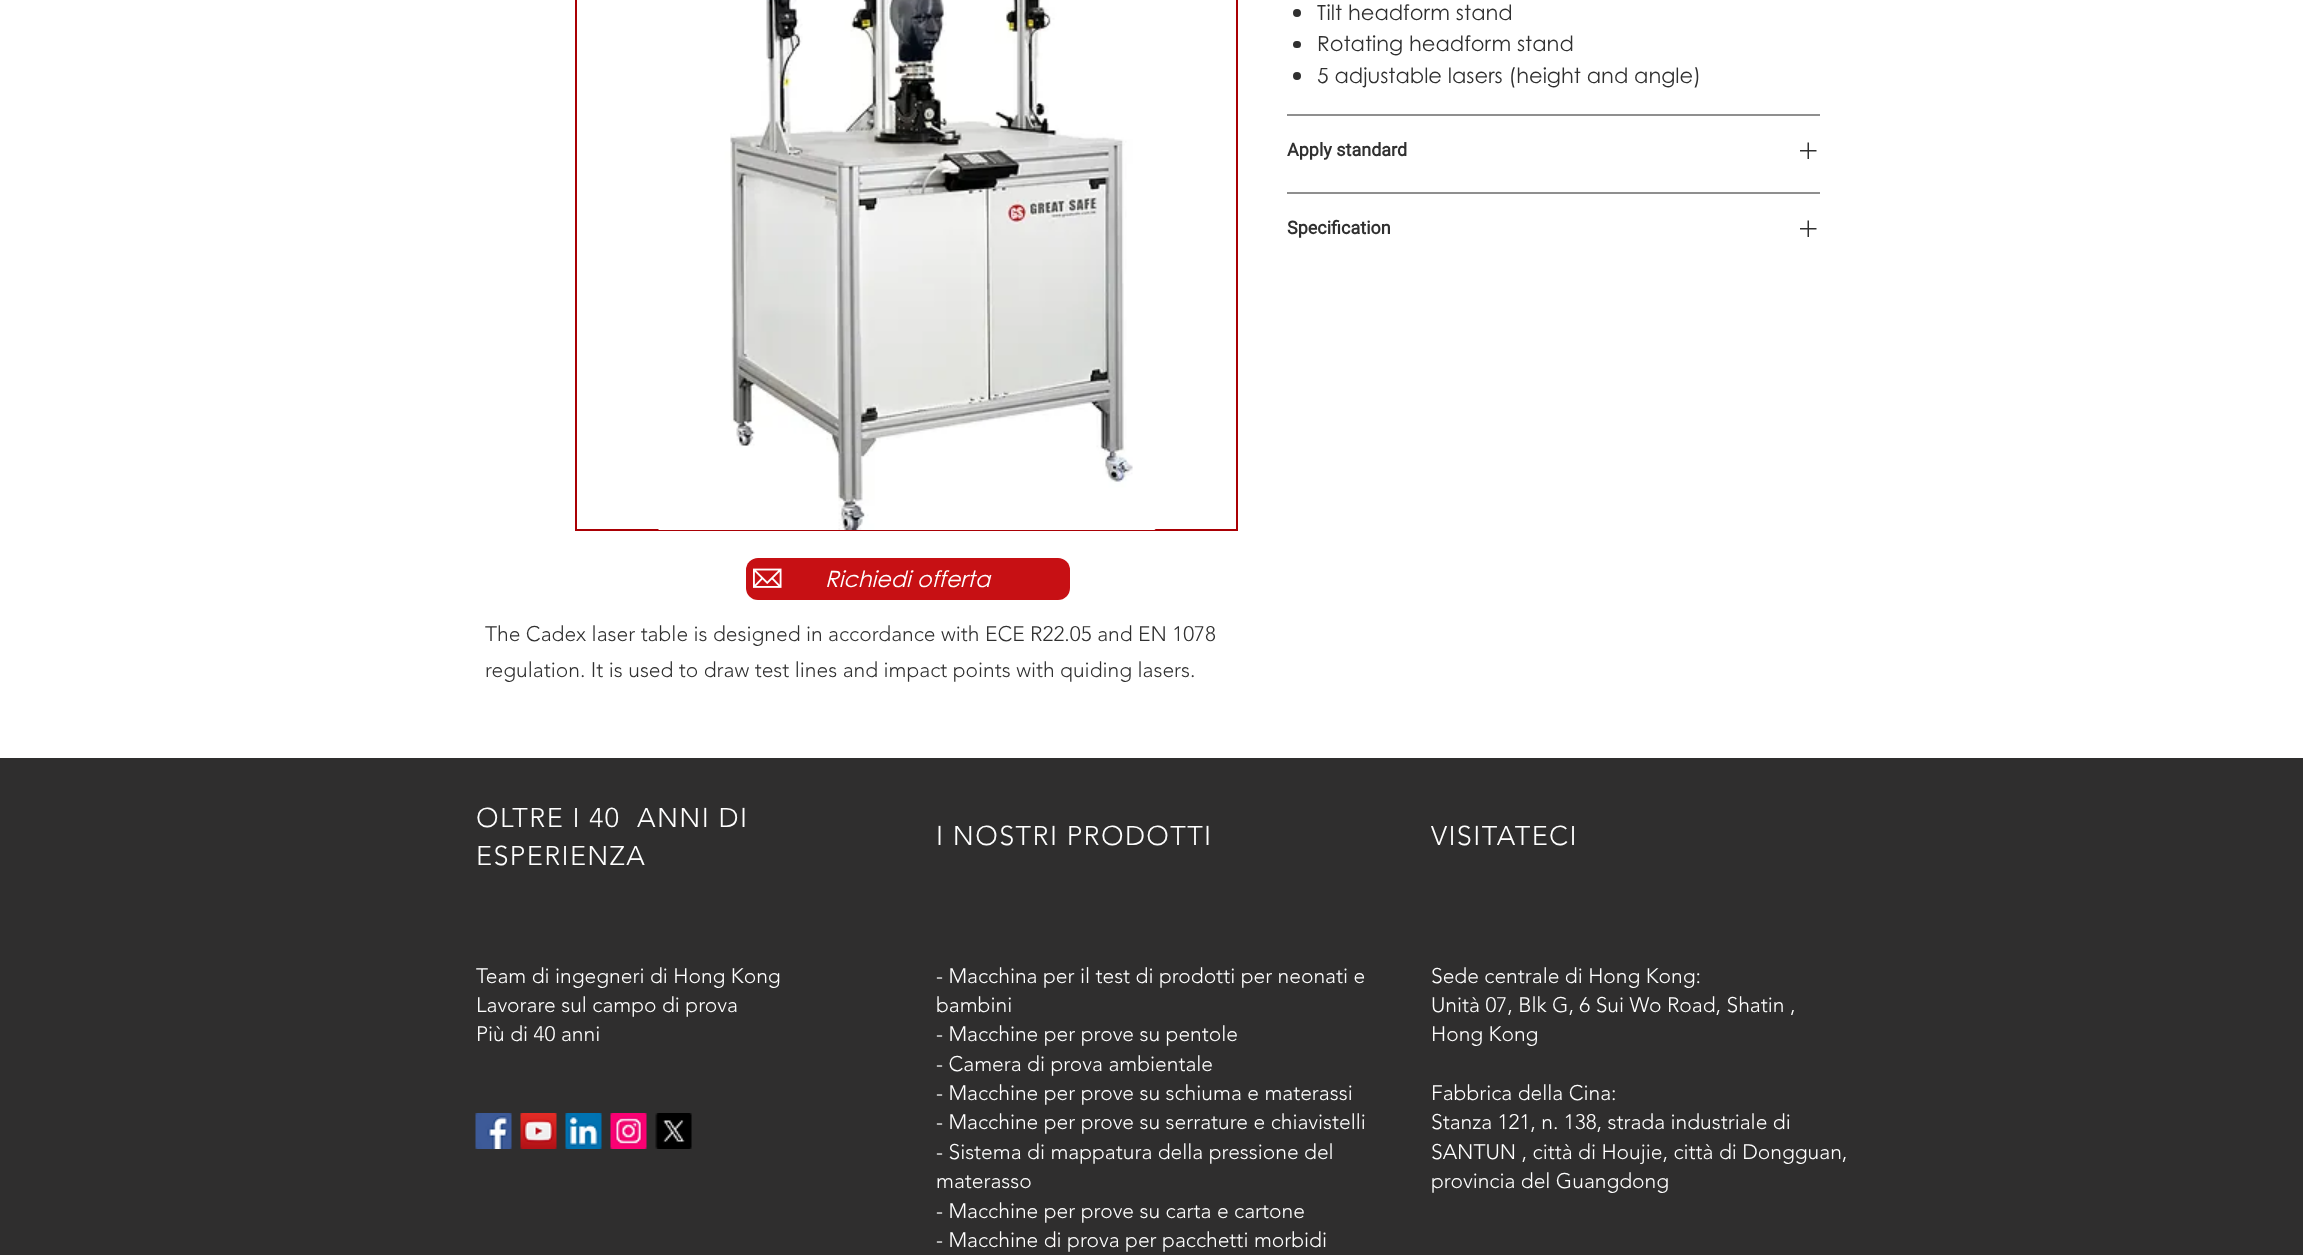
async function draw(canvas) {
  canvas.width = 2303
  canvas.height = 1255
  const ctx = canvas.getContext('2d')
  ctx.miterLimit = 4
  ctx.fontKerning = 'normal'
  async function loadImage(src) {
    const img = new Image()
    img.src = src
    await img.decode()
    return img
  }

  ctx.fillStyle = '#fff'
  ctx.fillRect(0, 0, 2303, 1255)
  ctx.fillStyle = '#8f8f8f'
  ctx.fillRect(1287, 114, 533, 2)
  ctx.fillStyle = '#303030'
  ctx.beginPath()
  ctx.arc(1297, 13, 4, 0, 2 * Math.PI)
  ctx.fill()
  ctx.font = '21px Century Gothic'
  ctx.fillText('Tilt headform stand', 1317, 20)
  ctx.beginPath()
  ctx.roundRect(1293, 41, 8, 7, 3.5)
  ctx.fill()
  ctx.fillText('Rotating headform stand', 1317, 51)
  ctx.beginPath()
  ctx.arc(1297, 76, 4, 0, 2 * Math.PI)
  ctx.fill()
  ctx.fillText('5 adjustable lasers (height and angle)', 1317, 83)
  ctx.fillStyle = '#8f8f8f'
  ctx.fillRect(1287, 192, 533, 2)
  ctx.font = 'bold 18px Roboto'
  ctx.fillStyle = '#303030'
  ctx.fillText('Apply standard', 1287, 156)
  ctx.drawImage(await loadImage('image0.png'), 1800, 142, 17, 17)
  ctx.fillText('Specification', 1287, 234)
  ctx.drawImage(await loadImage('image0.png'), 1800, 220, 17, 17)
  ctx.strokeStyle = '#aa0004'
  ctx.lineWidth = 2
  ctx.strokeRect(576, -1, 661, 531)
  ctx.drawImage(await loadImage('image1.png'), 658, 0, 498, 530)
  ctx.font = '300 21px "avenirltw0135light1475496"'
  ctx.fillText('The Cadex laser table is designed in accordance with ECE R22.05 and EN 1078', 485, 641)
  ctx.fillText('regulation. It is used to draw test lines and impact points with quiding lasers.', 485, 677)
  ctx.fillStyle = '#c71014'
  ctx.beginPath()
  ctx.roundRect(746, 558, 324, 42, 12)
  ctx.fill()
  ctx.drawImage(await loadImage('image2.png'), 753, 568, 29, 20)
  ctx.font = 'italic 22.5px Century Gothic'
  ctx.fillStyle = '#fff'
  ctx.fillText('Richiedi offerta', 825, 587)
  ctx.fillStyle = '#2f2e2e'
  ctx.fillRect(0, 758, 2303, 497)
  ctx.letterSpacing = '1.4px'
  ctx.font = '300 27px "avenirltw0135light1475496"'
  ctx.fillStyle = '#fff'
  ctx.fillText('OLTRE I 40  ANNI DI', 476, 827)
  ctx.fillText('ESPERIENZA', 476, 865)
  ctx.fillText('I NOSTRI PRODOTTI', 936, 845)
  ctx.fillText('VISITATECI', 1431, 845)
  ctx.letterSpacing = '0px'
  ctx.font = '300 21px "avenirltw0135light1475496"'
  ctx.fillText('Team di ingegneri di Hong Kong', 476, 983)
  ctx.fillText('Lavorare sul campo di prova', 476, 1012)
  ctx.fillText('Più di 40 anni', 476, 1041)
  ctx.fillText('- Macchina per il test di prodotti per neonati e', 936, 983)
  ctx.fillText('bambini', 936, 1012)
  ctx.fillText('- Macchine per prove su pentole', 936, 1041)
  ctx.fillText('- Camera di prova ambientale', 936, 1071)
  ctx.fillText('- Macchine per prove su schiuma e materassi', 936, 1100)
  ctx.fillText('- Macchine per prove su serrature e chiavistelli', 936, 1129)
  ctx.fillText('- Sistema di mappatura della pressione del', 936, 1159)
  ctx.fillText('materasso', 936, 1188)
  ctx.fillText('- Macchine per prove su carta e cartone', 936, 1218)
  ctx.fillText('- Macchine di prova per pacchetti morbidi', 936, 1247)
  ctx.fillText('Sede centrale di Hong Kong:', 1431, 983)
  ctx.fillText('Unità 07, Blk G, 6 Sui Wo Road, Shatin ,', 1431, 1012)
  ctx.fillText('Hong Kong', 1431, 1041)
  ctx.fillText('Fabbrica della Cina:', 1431, 1100)
  ctx.fillText('Stanza 121, n. 138, strada industriale di', 1431, 1129)
  ctx.fillText('SANTUN , città di Houjie, città di Dongguan,', 1431, 1159)
  ctx.fillText('provincia del Guangdong', 1431, 1188)
  ctx.drawImage(await loadImage('image3.png'), 475, 1113, 37, 36)
  ctx.drawImage(await loadImage('image4.png'), 520, 1113, 37, 36)
  ctx.drawImage(await loadImage('image5.png'), 565, 1113, 37, 36)
  ctx.drawImage(await loadImage('image6.png'), 610, 1113, 37, 36)
  ctx.drawImage(await loadImage('image7.png'), 655, 1113, 37, 36)
}

draw(document.querySelector('canvas'))
